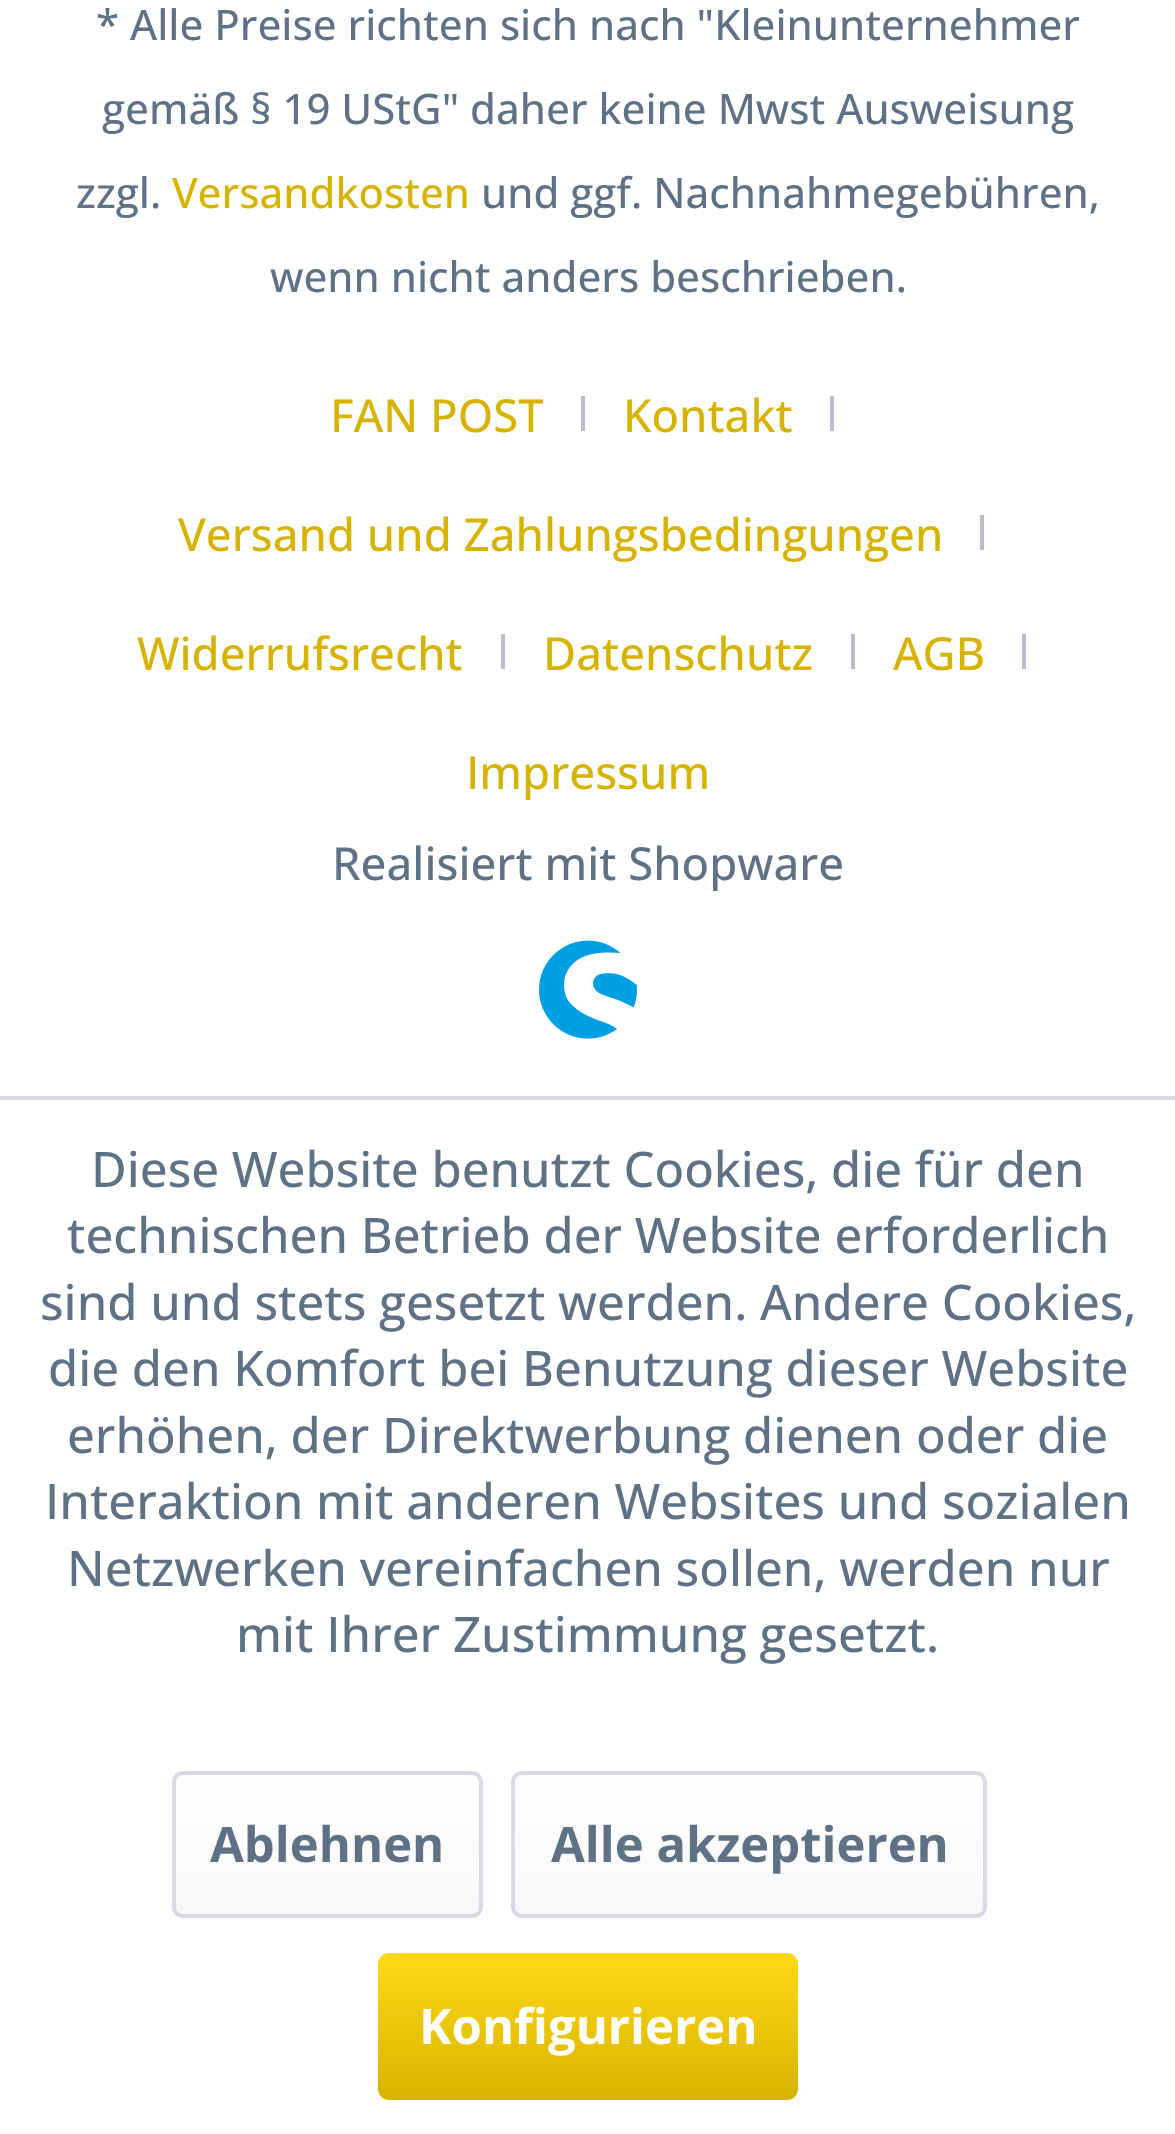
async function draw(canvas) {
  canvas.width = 1175
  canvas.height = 2134
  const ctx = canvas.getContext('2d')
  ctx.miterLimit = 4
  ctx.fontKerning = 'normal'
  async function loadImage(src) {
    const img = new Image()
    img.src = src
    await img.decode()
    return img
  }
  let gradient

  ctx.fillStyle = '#fff'
  ctx.fillRect(0, 0, 1175, 2134)
  ctx.font = '500 42px Open Sans'
  ctx.fillStyle = '#5f7285'
  ctx.fillText('* Alle Preise richten sich nach "Kleinunternehmer', 96, 40)
  ctx.fillText('gemäß § 19 UStG" daher keine Mwst Ausweisung', 102, 124)
  ctx.fillText('zzgl.', 76, 208)
  ctx.fillStyle = '#d6b300'
  ctx.fillText('Versandkosten', 172, 208)
  ctx.fillStyle = '#5f7285'
  ctx.fillText('und ggf. Nachnahmegebühren,', 481, 208)
  ctx.fillText('wenn nicht anders beschrieben.', 270, 292)
  ctx.font = '500 45.5px Open Sans'
  ctx.fillStyle = '#d6b300'
  ctx.fillText('FAN POST', 330, 432)
  ctx.fillStyle = '#bcbcd0'
  ctx.fillRect(581, 396, 4, 35)
  ctx.fillStyle = '#d6b300'
  ctx.fillText('Kontakt', 623, 432)
  ctx.fillStyle = '#bcbcd0'
  ctx.fillRect(830, 396, 4, 35)
  ctx.fillStyle = '#d6b300'
  ctx.fillText('Versand und Zahlungsbedingungen', 178, 551)
  ctx.fillStyle = '#bcbcd0'
  ctx.fillRect(980, 515, 4, 35)
  ctx.fillStyle = '#d6b300'
  ctx.fillText('Widerrufsrecht', 137, 670)
  ctx.fillStyle = '#bcbcd0'
  ctx.fillRect(501, 634, 4, 35)
  ctx.fillStyle = '#d6b300'
  ctx.fillText('Datenschutz', 543, 670)
  ctx.fillStyle = '#bcbcd0'
  ctx.fillRect(851, 634, 4, 35)
  ctx.fillStyle = '#d6b300'
  ctx.fillText('AGB', 893, 670)
  ctx.fillStyle = '#bcbcd0'
  ctx.fillRect(1022, 634, 4, 35)
  ctx.fillStyle = '#d6b300'
  ctx.fillText('Impressum', 466, 789)
  ctx.fillStyle = '#5f7285'
  ctx.fillText('Realisiert mit Shopware', 332, 880)
  ctx.drawImage(await loadImage('image0.png'), 539, 940, 98, 99)
  ctx.fillStyle = '#dadae5'
  ctx.fillRect(0, 1096, 1175, 4)
  ctx.font = '500 49px Open Sans'
  ctx.fillStyle = '#5f7285'
  ctx.fillText('Diese Website benutzt Cookies, die für den', 91, 1187)
  ctx.fillText('technischen Betrieb der Website erforderlich', 67, 1253)
  ctx.fillText('sind und stets gesetzt werden. Andere Cookies,', 40, 1320)
  ctx.fillText('die den Komfort bei Benutzung dieser Website', 48, 1386)
  ctx.fillText('erhöhen, der Direktwerbung dienen oder die', 67, 1453)
  ctx.fillText('Interaktion mit anderen Websites und sozialen', 45, 1519)
  ctx.fillText('Netzwerken vereinfachen sollen, werden nur', 67, 1586)
  ctx.fillText('mit Ihrer Zustimmung gesetzt.', 236, 1652)
  gradient = ctx.createLinearGradient(327, 1775, 327, 1915)
  gradient.addColorStop(0, '#fff')
  gradient.addColorStop(1, '#f8f8fa')
  ctx.fillStyle = gradient
  ctx.beginPath()
  ctx.roundRect(175, 1775, 305, 140, 7)
  ctx.fill()
  ctx.beginPath()
  ctx.roundRect(174, 1773, 307, 143, 9)
  ctx.strokeStyle = '#dadae5'
  ctx.lineWidth = 4
  ctx.stroke()
  ctx.font = 'bold 49px Open Sans'
  ctx.fillStyle = '#5f7285'
  ctx.fillText('Ablehnen', 210, 1862)
  gradient = ctx.createLinearGradient(749, 1775, 749, 1915)
  gradient.addColorStop(0, '#fff')
  gradient.addColorStop(1, '#f8f8fa')
  ctx.fillStyle = gradient
  ctx.beginPath()
  ctx.roundRect(515, 1775, 469, 140, 7)
  ctx.fill()
  ctx.beginPath()
  ctx.roundRect(513, 1773, 472, 143, 9)
  ctx.stroke()
  ctx.fillStyle = '#5f7285'
  ctx.fillText('Alle akzeptieren', 551, 1862)
  gradient = ctx.createLinearGradient(588, 1953, 588, 2100)
  gradient.addColorStop(0, '#ffd914')
  gradient.addColorStop(1, '#d6b300')
  ctx.fillStyle = gradient
  ctx.beginPath()
  ctx.roundRect(378, 1953, 420, 147, 11)
  ctx.fill()
  ctx.fillStyle = '#fff'
  ctx.fillText('Konfigurieren', 419, 2044)
}

draw(document.querySelector('canvas'))
